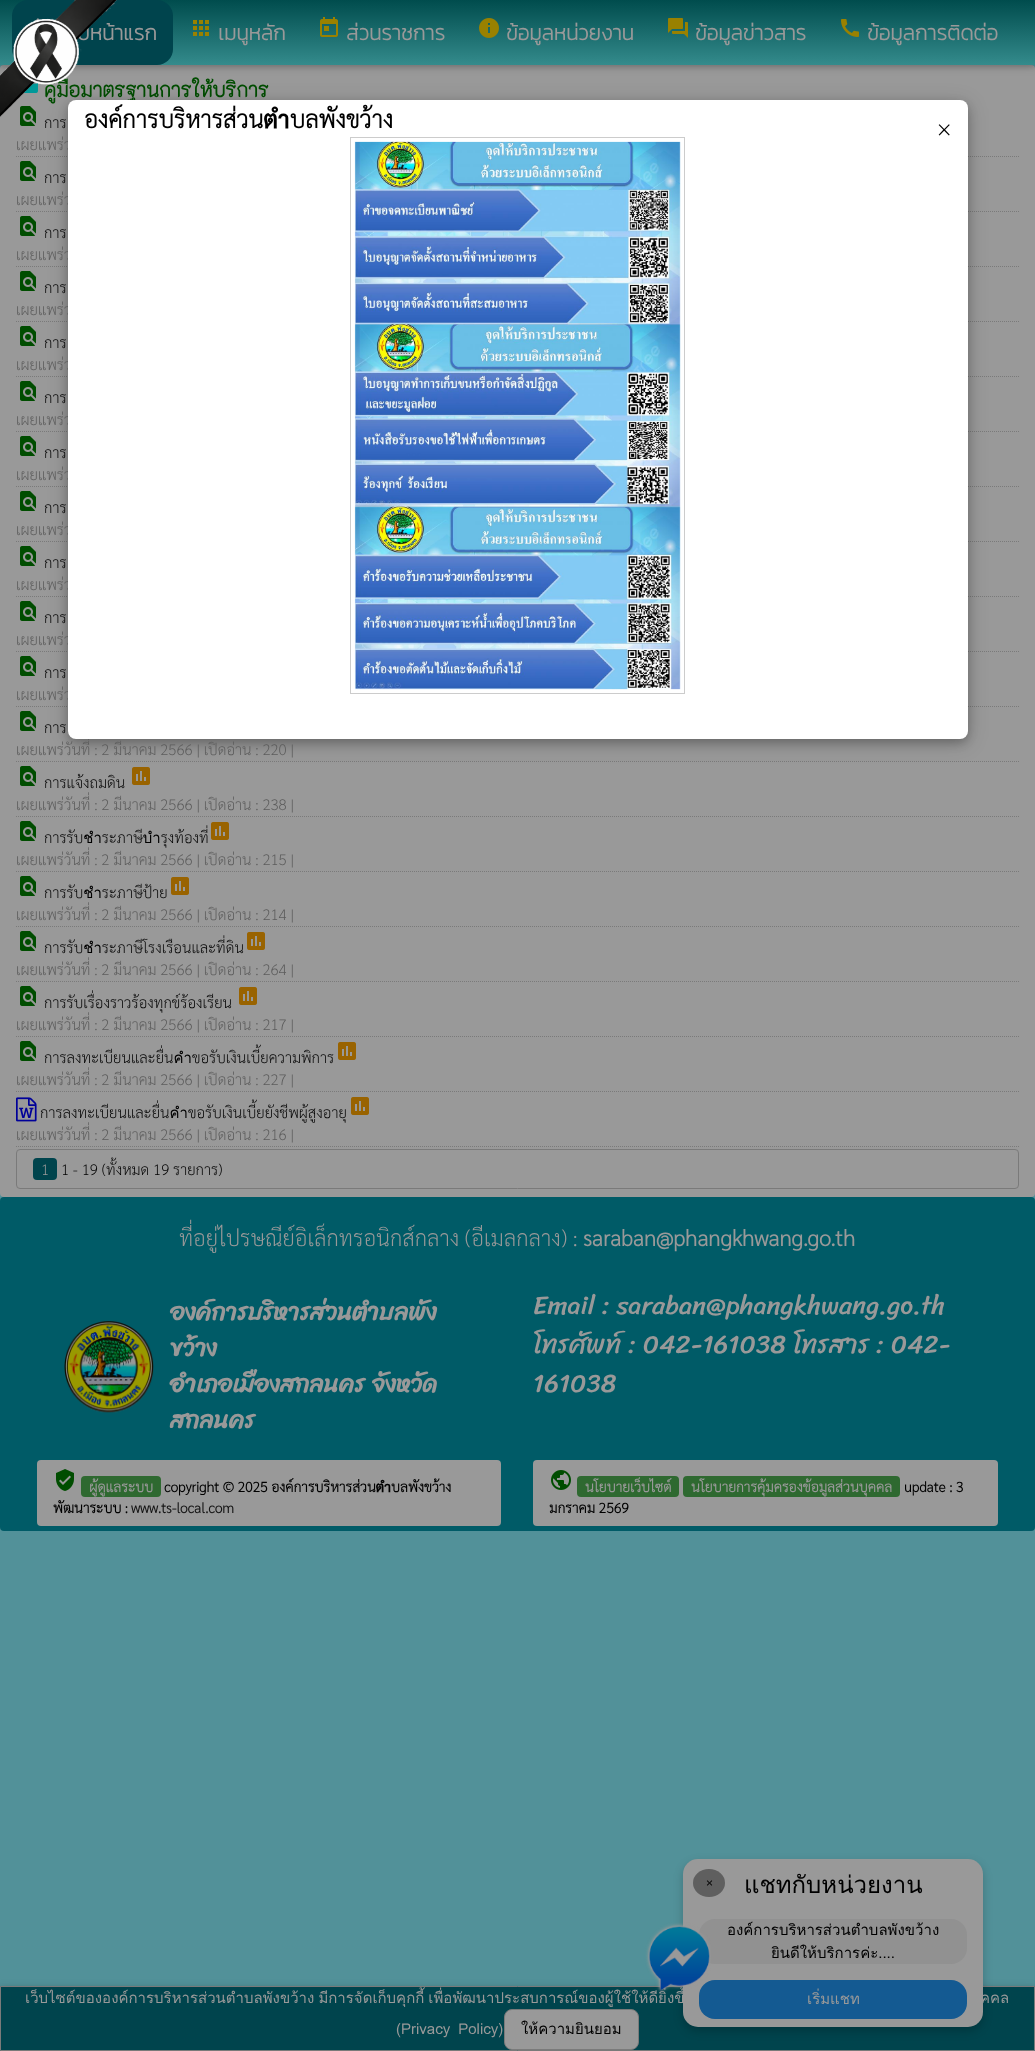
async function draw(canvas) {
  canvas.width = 1035
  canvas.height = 2051
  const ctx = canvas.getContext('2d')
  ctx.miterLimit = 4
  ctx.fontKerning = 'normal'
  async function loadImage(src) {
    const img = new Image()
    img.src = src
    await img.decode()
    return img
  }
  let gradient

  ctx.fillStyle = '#529199'
  ctx.fillRect(0, 0, 1035, 2051)
  ctx.fillStyle = '#999'
  ctx.beginPath()
  ctx.roundRect(0, 65, 1035, 1132, 4)
  ctx.fill()
  ctx.fillStyle = '#0000001f'
  ctx.filter = 'blur(5px)'
  ctx.beginPath()
  ctx.rect(0, 2, 1035, 65)
  ctx.fill()
  ctx.filter = 'none'
  ctx.fillStyle = '#00000029'
  ctx.filter = 'blur(2.5px)'
  ctx.beginPath()
  ctx.rect(0, 2, 1035, 65)
  ctx.fill()
  ctx.filter = 'none'
  gradient = ctx.createLinearGradient(518, 0, 518, 65)
  gradient.addColorStop(0, '#004c4d')
  gradient.addColorStop(1, '#348b8c')
  ctx.fillStyle = gradient
  ctx.fillRect(0, 0, 1035, 65)
  ctx.fillStyle = '#00444d'
  ctx.beginPath()
  ctx.roundRect(12, 0, 161, 65, 16)
  ctx.fill()
  ctx.fillStyle = '#999'
  ctx.beginPath()
  ctx.moveTo(39.5, 20)
  ctx.lineTo(31.5, 28)
  ctx.lineTo(39.5, 36)
  ctx.lineTo(38, 38)
  ctx.lineTo(28, 28)
  ctx.lineTo(38, 18)
  ctx.closePath()
  ctx.fill()
  ctx.font = 'bold 21px Kanit'
  ctx.fillText('บหน้าแรก', 77, 40)
  ctx.drawImage(await loadImage('image6.png'), 23, 83, 15, 10)
  ctx.font = 'bold 20px "K2D"'
  ctx.fillStyle = '#004d00'
  ctx.fillText('คู่มือมาตรฐานการให้บริการ', 44, 97)
  ctx.drawImage(await loadImage('image7.png'), 20, 106, 16, 20)
  ctx.beginPath()
  ctx.moveTo(16, 156.5)
  ctx.lineTo(1019, 156.5)
  ctx.strokeStyle = '#7a7a7a'
  ctx.setLineDash([1, 1])
  ctx.stroke()
  ctx.beginPath()
  ctx.moveTo(16, 211.5)
  ctx.lineTo(1019, 211.5)
  ctx.stroke()
  ctx.beginPath()
  ctx.moveTo(16, 266.5)
  ctx.lineTo(1019, 266.5)
  ctx.stroke()
  ctx.beginPath()
  ctx.moveTo(16, 321.5)
  ctx.lineTo(1019, 321.5)
  ctx.stroke()
  ctx.beginPath()
  ctx.moveTo(16, 376.5)
  ctx.lineTo(1019, 376.5)
  ctx.stroke()
  ctx.beginPath()
  ctx.moveTo(16, 431.5)
  ctx.lineTo(1019, 431.5)
  ctx.stroke()
  ctx.beginPath()
  ctx.moveTo(16, 486.5)
  ctx.lineTo(1019, 486.5)
  ctx.stroke()
  ctx.beginPath()
  ctx.moveTo(16, 541.5)
  ctx.lineTo(1019, 541.5)
  ctx.stroke()
  ctx.beginPath()
  ctx.moveTo(16, 596.5)
  ctx.lineTo(1019, 596.5)
  ctx.stroke()
  ctx.beginPath()
  ctx.moveTo(16, 651.5)
  ctx.lineTo(1019, 651.5)
  ctx.stroke()
  ctx.beginPath()
  ctx.moveTo(16, 706.5)
  ctx.lineTo(1019, 706.5)
  ctx.stroke()
  ctx.beginPath()
  ctx.moveTo(16, 761.5)
  ctx.lineTo(1019, 761.5)
  ctx.stroke()
  ctx.drawImage(await loadImage('image8.png'), 132, 767, 18, 18)
  ctx.fillStyle = '#00000030'
  ctx.filter = 'blur(10px)'
  ctx.beginPath()
  ctx.roundRect(68, 104, 900, 639, 8)
  ctx.fill()
  ctx.filter = 'none'
  ctx.fillStyle = '#00000033'
  ctx.filter = 'blur(5px)'
  ctx.beginPath()
  ctx.roundRect(68, 104, 900, 639, 8)
  ctx.fill()
  ctx.filter = 'none'
  ctx.font = '200 15px Sarabun'
  ctx.fillStyle = '#5c5c5c'
  ctx.fillText('เผยแพร่ว', 16, 150)
  ctx.fillText('เผยแพร่ว', 16, 205)
  ctx.fillText('เผยแพร่ว', 16, 260)
  ctx.fillText('เผยแพร่ว', 16, 315)
  ctx.fillText('เผยแพร่ว', 16, 370)
  ctx.fillText('เผยแพร่ว', 16, 425)
  ctx.fillText('เผยแพร่ว', 16, 480)
  ctx.fillText('เผยแพร่ว', 16, 535)
  ctx.fillText('เผยแพร่ว', 16, 590)
  ctx.fillText('เผยแพร่ว', 16, 645)
  ctx.fillText('เผยแพร่ว', 16, 700)
  ctx.fillText('เผยแพร่วันที่ : 2 มีนาคม 2566 | เปิดอ่าน : 220 |', 16, 755)
  ctx.fillStyle = '#fff'
  ctx.beginPath()
  ctx.roundRect(68, 100, 900, 639, 8)
  ctx.fill()
  ctx.font = 'bold 24px Sarabun'
  ctx.fillStyle = '#000'
  ctx.fillText('องค์การบริหารส่วนตำบลพังขว้าง', 84, 128)
  ctx.drawImage(await loadImage('image0.png'), 0, 0, 117, 117)
  ctx.drawImage(await loadImage('image1.png'), 193, 20, 16, 16)
  ctx.font = 'bold 21px Kanit'
  ctx.fillStyle = '#999'
  ctx.fillText('เมนูหลัก', 218, 40)
  ctx.drawImage(await loadImage('image2.png'), 320, 17, 18, 20)
  ctx.fillText('ส่วนราชการ', 346, 40)
  ctx.drawImage(await loadImage('image3.png'), 479, 18, 20, 20)
  ctx.fillText('ข้อมูลหน่วยงาน', 506, 40)
  ctx.drawImage(await loadImage('image4.png'), 668, 18, 20, 20)
  ctx.fillText('ข้อมูลข่าวสาร', 695, 40)
  ctx.drawImage(await loadImage('image5.png'), 841, 19, 18, 18)
  ctx.fillText('ข้อมูลการติดต่อ', 867, 40)
  ctx.font = '200 15px Sarabun'
  ctx.fillStyle = '#000'
  ctx.fillText('การ', 44, 128)
  ctx.drawImage(await loadImage('image7.png'), 20, 161, 16, 20)
  ctx.fillText('การ', 44, 183)
  ctx.drawImage(await loadImage('image7.png'), 20, 216, 16, 20)
  ctx.fillText('การ', 44, 238)
  ctx.drawImage(await loadImage('image7.png'), 20, 271, 16, 20)
  ctx.fillText('การ', 44, 293)
  ctx.drawImage(await loadImage('image7.png'), 20, 326, 16, 20)
  ctx.fillText('การ', 44, 348)
  ctx.drawImage(await loadImage('image7.png'), 20, 381, 16, 20)
  ctx.fillText('การ', 44, 403)
  ctx.drawImage(await loadImage('image7.png'), 20, 436, 16, 20)
  ctx.fillText('การ', 44, 458)
  ctx.drawImage(await loadImage('image7.png'), 20, 491, 16, 20)
  ctx.fillText('การ', 44, 513)
  ctx.drawImage(await loadImage('image7.png'), 20, 546, 16, 20)
  ctx.fillText('การ', 44, 568)
  ctx.drawImage(await loadImage('image7.png'), 20, 601, 16, 20)
  ctx.fillText('การ', 44, 623)
  ctx.drawImage(await loadImage('image7.png'), 20, 656, 16, 20)
  ctx.fillText('การ', 44, 678)
  ctx.drawImage(await loadImage('image7.png'), 20, 711, 16, 20)
  ctx.fillText('การ', 44, 733)
  ctx.drawImage(await loadImage('image7.png'), 20, 766, 16, 20)
  ctx.fillText('การแจ้งถมดิน', 44, 788)
  ctx.beginPath()
  ctx.moveTo(16, 816.5)
  ctx.lineTo(1019, 816.5)
  ctx.stroke()
  ctx.fillStyle = '#5c5c5c'
  ctx.fillText('เผยแพร่วันที่ : 2 มีนาคม 2566 | เปิดอ่าน : 238 |', 16, 810)
  ctx.drawImage(await loadImage('image7.png'), 20, 821, 16, 20)
  ctx.fillStyle = '#000'
  ctx.fillText('การรับชำระภาษีบำรุงท้องที่', 44, 843)
  ctx.drawImage(await loadImage('image8.png'), 211, 822, 18, 18)
  ctx.beginPath()
  ctx.moveTo(16, 871.5)
  ctx.lineTo(1019, 871.5)
  ctx.stroke()
  ctx.fillStyle = '#5c5c5c'
  ctx.fillText('เผยแพร่วันที่ : 2 มีนาคม 2566 | เปิดอ่าน : 215 |', 16, 865)
  ctx.drawImage(await loadImage('image7.png'), 20, 876, 16, 20)
  ctx.fillStyle = '#000'
  ctx.fillText('การรับชำระภาษีป้าย', 44, 898)
  ctx.drawImage(await loadImage('image8.png'), 171, 877, 18, 18)
  ctx.beginPath()
  ctx.moveTo(16, 926.5)
  ctx.lineTo(1019, 926.5)
  ctx.stroke()
  ctx.fillStyle = '#5c5c5c'
  ctx.fillText('เผยแพร่วันที่ : 2 มีนาคม 2566 | เปิดอ่าน : 214 |', 16, 920)
  ctx.drawImage(await loadImage('image7.png'), 20, 931, 16, 20)
  ctx.fillStyle = '#000'
  ctx.fillText('การรับชำระภาษีโรงเรือนและที่ดิน', 44, 953)
  ctx.drawImage(await loadImage('image8.png'), 247, 932, 18, 18)
  ctx.beginPath()
  ctx.moveTo(16, 981.5)
  ctx.lineTo(1019, 981.5)
  ctx.stroke()
  ctx.fillStyle = '#5c5c5c'
  ctx.fillText('เผยแพร่วันที่ : 2 มีนาคม 2566 | เปิดอ่าน : 264 |', 16, 975)
  ctx.drawImage(await loadImage('image7.png'), 20, 986, 16, 20)
  ctx.fillStyle = '#000'
  ctx.fillText('การรับเรื่องราวร้องทุกข์ร้องเรียน', 44, 1008)
  ctx.drawImage(await loadImage('image8.png'), 239, 987, 18, 18)
  ctx.beginPath()
  ctx.moveTo(16, 1036.5)
  ctx.lineTo(1019, 1036.5)
  ctx.stroke()
  ctx.fillStyle = '#5c5c5c'
  ctx.fillText('เผยแพร่วันที่ : 2 มีนาคม 2566 | เปิดอ่าน : 217 |', 16, 1030)
  ctx.drawImage(await loadImage('image7.png'), 20, 1041, 16, 20)
  ctx.fillStyle = '#000'
  ctx.fillText('การลงทะเบียนและยื่นคำขอรับเงินเบี้ยความพิการ', 44, 1063)
  ctx.drawImage(await loadImage('image8.png'), 338, 1042, 18, 18)
  ctx.beginPath()
  ctx.moveTo(16, 1091.5)
  ctx.lineTo(1019, 1091.5)
  ctx.stroke()
  ctx.fillStyle = '#5c5c5c'
  ctx.fillText('เผยแพร่วันที่ : 2 มีนาคม 2566 | เปิดอ่าน : 227 |', 16, 1085)
  ctx.drawImage(await loadImage('image9.png'), 16, 1097, 21, 25)
  ctx.fillStyle = '#000'
  ctx.fillText('การลงทะเบียนและยื่นคำขอรับเงินเบี้ยยังชีพผู้สูงอายุ', 40, 1118)
  ctx.drawImage(await loadImage('image8.png'), 351, 1097, 18, 18)
  ctx.beginPath()
  ctx.moveTo(16, 1146.5)
  ctx.lineTo(1019, 1146.5)
  ctx.stroke()
  ctx.fillStyle = '#5c5c5c'
  ctx.fillText('เผยแพร่วันที่ : 2 มีนาคม 2566 | เปิดอ่าน : 216 |', 16, 1140)
  ctx.beginPath()
  ctx.roundRect(16.5, 1149.5, 1002, 39, 3.5)
  ctx.setLineDash([])
  ctx.stroke()
  ctx.fillStyle = '#00444d'
  ctx.beginPath()
  ctx.roundRect(33, 1158, 24, 22, 4)
  ctx.fill()
  ctx.fillStyle = '#999'
  ctx.fillText('1', 41, 1175)
  ctx.fillStyle = '#000'
  ctx.fillText('1 - 19 (ทั้งหมด 19 รายการ)', 61, 1175)
  ctx.fillStyle = '#005b67'
  ctx.beginPath()
  ctx.roundRect(0, 1197, 1035, 334, 4)
  ctx.fill()
  ctx.font = '200 22px Sarabun'
  ctx.fillStyle = '#999'
  ctx.fillText('ที่อยู่ไปรษณีย์อิเล็กทรอนิกส์กลาง (อีเมลกลาง) :', 179, 1246)
  ctx.font = 'bold 22px Sarabun'
  ctx.fillText('saraban@phangkhwang.go.th', 583, 1246)
  ctx.drawImage(await loadImage('image10.png'), 64, 1321, 90, 92)
  ctx.font = 'bold 24px Sriracha'
  ctx.fillText('องค์การบริหารส่วนตำบลพัง', 170, 1320)
  ctx.fillText('ขว้าง', 170, 1356)
  ctx.fillText('อำเภอเมืองสกลนคร จังหวัด', 170, 1392)
  ctx.fillText('สกลนคร', 170, 1428)
  ctx.font = '26px Sriracha'
  ctx.fillText('Email : saraban@phangkhwang.go.th', 533, 1314)
  ctx.fillText('โทรศัพท์ : 042-161038 โทรสาร : 042-', 533, 1353)
  ctx.fillText('161038', 533, 1392)
  ctx.beginPath()
  ctx.roundRect(37, 1460, 464, 66, 4)
  ctx.fill()
  ctx.drawImage(await loadImage('image11.png'), 56, 1469, 18, 22)
  ctx.fillStyle = '#2e6930'
  ctx.beginPath()
  ctx.roundRect(81, 1476, 80, 21, 4)
  ctx.fill()
  ctx.font = 'bold 14px Sarabun'
  ctx.fillStyle = '#999'
  ctx.fillText('ผู้ดูแลระบบ', 89, 1492)
  ctx.fillStyle = '#000'
  ctx.fillText('copyright © 2025 องค์การบริหารส่วนตำบลพังขว้าง', 164, 1492)
  ctx.fillText('พัฒนาระบบ :', 53, 1513)
  ctx.fillStyle = '#141414'
  ctx.fillText('www.ts-local.com', 131, 1513)
  ctx.fillStyle = '#999'
  ctx.beginPath()
  ctx.roundRect(533, 1460, 465, 66, 4)
  ctx.fill()
  ctx.drawImage(await loadImage('image12.png'), 551, 1470, 20, 20)
  ctx.fillStyle = '#2e6930'
  ctx.beginPath()
  ctx.roundRect(577, 1476, 102, 21, 4)
  ctx.fill()
  ctx.fillStyle = '#999'
  ctx.fillText('นโยบายเว็บไซต์', 585, 1492)
  ctx.fillStyle = '#2e6930'
  ctx.beginPath()
  ctx.roundRect(683, 1476, 217, 21, 4)
  ctx.fill()
  ctx.fillStyle = '#999'
  ctx.fillText('นโยบายการคุ้มครองข้อมูลส่วนบุคคล', 691, 1492)
  ctx.fillStyle = '#000'
  ctx.fillText('update : 3', 904, 1492)
  ctx.fillText('มกราคม 2569', 549, 1513)
  ctx.font = '200 24px Sarabun'
  ctx.fillText('×', 937, 136)
  ctx.strokeStyle = '#ccc'
  ctx.strokeRect(350.5, 137.5, 334, 556)
  ctx.drawImage(await loadImage('image13.png'), 354, 141, 327, 549)
  ctx.fillStyle = '#0000001f'
  ctx.filter = 'blur(5px)'
  ctx.beginPath()
  ctx.rect(0, 1988, 1035, 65)
  ctx.fill()
  ctx.filter = 'none'
  ctx.fillStyle = '#00000029'
  ctx.filter = 'blur(2.5px)'
  ctx.beginPath()
  ctx.rect(0, 1988, 1035, 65)
  ctx.fill()
  ctx.filter = 'none'
  ctx.fillStyle = '#00444d'
  ctx.beginPath()
  ctx.rect(0.5, 1986.5, 1034, 64)
  ctx.fill()
  ctx.strokeStyle = '#7a7a7a'
  ctx.stroke()
  ctx.fillStyle = '#00000033'
  ctx.filter = 'blur(5px)'
  ctx.beginPath()
  ctx.roundRect(683, 1863, 300, 168, 15)
  ctx.fill()
  ctx.filter = 'none'
  ctx.fillStyle = '#999'
  ctx.beginPath()
  ctx.roundRect(683, 1859, 300, 168, 15)
  ctx.fill()
  ctx.fillStyle = '#5f5f5f'
  ctx.beginPath()
  ctx.ellipse(709, 1883, 16, 14, 0, 0, 2 * Math.PI)
  ctx.fill()
  ctx.font = '12px Liberation Sans'
  ctx.fillStyle = '#000'
  ctx.fillText('×', 706, 1887)
  ctx.font = '24px Loma'
  ctx.fillText('แชทกับหน่วยงาน', 744, 1893)
  ctx.fillStyle = '#919191'
  ctx.beginPath()
  ctx.roundRect(699, 1919, 268, 45, 16)
  ctx.fill()
  ctx.font = '15px Loma'
  ctx.fillStyle = '#000'
  ctx.fillText('องค์การบริหารส่วนตำบลพังขว้าง', 727, 1935)
  ctx.fillText('ยินดีให้บริการค่ะ....', 771, 1958)
  ctx.fillStyle = '#145a92'
  ctx.beginPath()
  ctx.roundRect(699, 1980, 268, 39, 16)
  ctx.fill()
  ctx.wordSpacing = '-1px'
  ctx.fillStyle = '#999'
  ctx.fillText('เว็บไซต์ขององค์การบริหารส่วนตำบลพังขว้าง มีการจัดเก็บคุกกี้ เพื่อพัฒนาประสบการณ์ของผู้ใช้ให้ดียิ่งขึ้', 25, 2003)
  ctx.drawImage(await loadImage('image14.png'), 645, 1922, 66, 70)
  ctx.wordSpacing = '0px'
  ctx.fillText('เริ่มแชท', 807, 2004)
  ctx.wordSpacing = '-1px'
  ctx.fillText('คคล', 980, 2003)
  ctx.wordSpacing = '3px'
  ctx.fillText('(Privacy Policy)', 396, 2034)
  ctx.beginPath()
  ctx.roundRect(504.5, 2009.5, 134, 40, 7.5)
  ctx.fill()
  ctx.stroke()
  ctx.wordSpacing = '0px'
  ctx.fillStyle = '#000'
  ctx.fillText('ให้ความยินยอม', 521, 2034)
}

draw(document.querySelector('canvas'))
